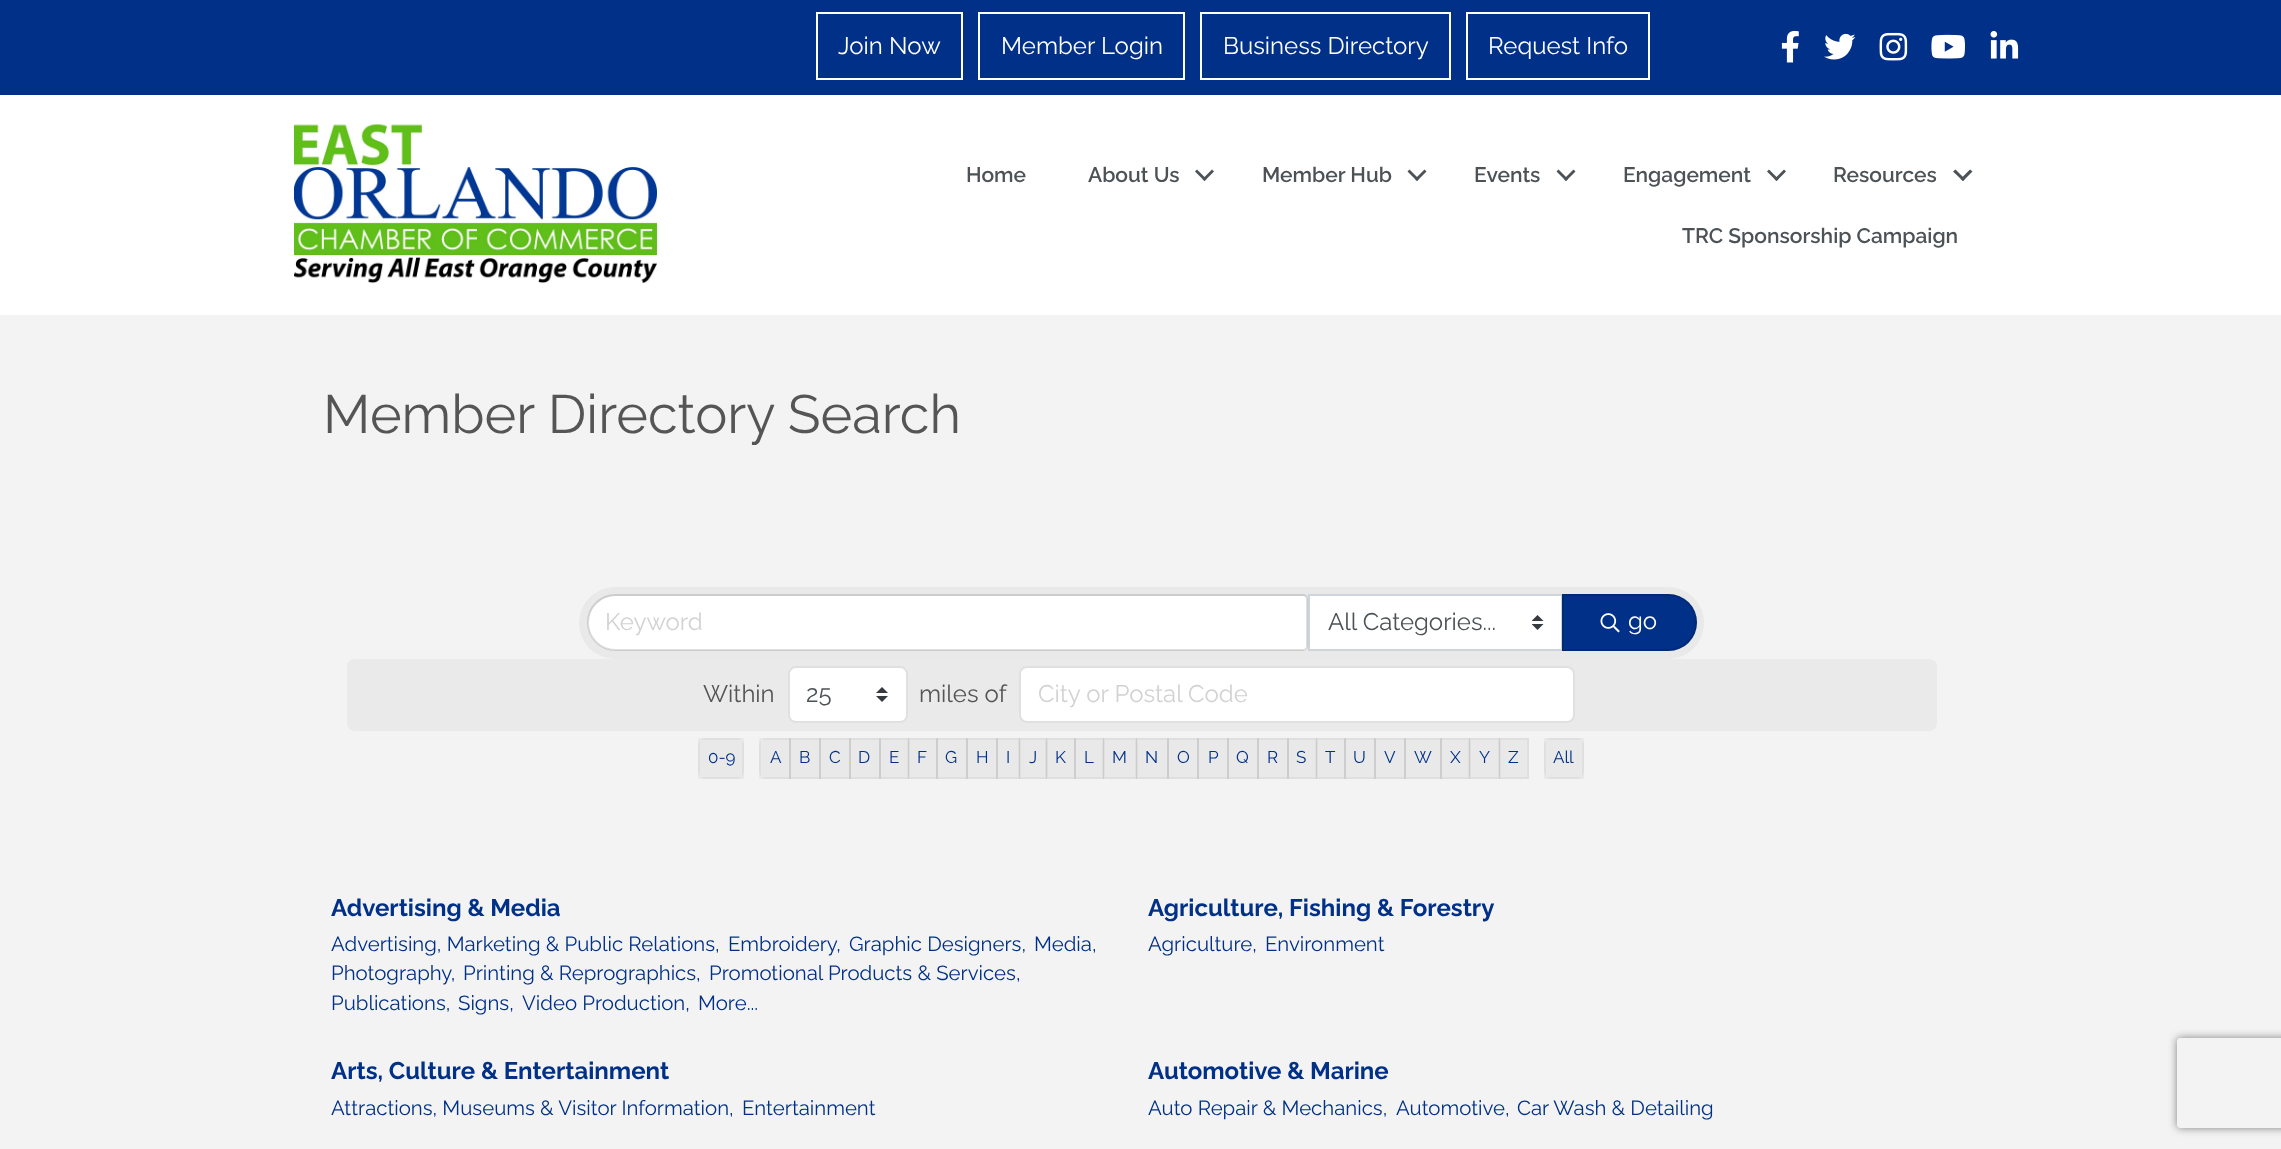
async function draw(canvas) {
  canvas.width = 2281
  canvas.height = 1149
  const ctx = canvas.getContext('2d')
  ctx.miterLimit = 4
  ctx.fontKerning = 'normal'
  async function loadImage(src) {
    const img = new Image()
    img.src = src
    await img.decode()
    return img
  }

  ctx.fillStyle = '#003087'
  ctx.fillRect(0, 0, 2281, 1149)
  ctx.strokeStyle = '#fff'
  ctx.lineWidth = 2
  ctx.strokeRect(817, 13, 145, 66)
  ctx.font = '24px Raleway'
  ctx.fillStyle = '#fff'
  ctx.fillText('Join Now', 838, 54)
  ctx.strokeRect(979, 13, 205, 66)
  ctx.fillText('Member Login', 1001, 54)
  ctx.strokeRect(1201, 13, 249, 66)
  ctx.fillText('Business Directory', 1223, 54)
  ctx.strokeRect(1467, 13, 182, 66)
  ctx.fillText('Request Info', 1488, 54)
  ctx.drawImage(await loadImage('image0.png'), 1781, 30, 18, 33)
  ctx.drawImage(await loadImage('image1.png'), 1824, 33, 32, 27)
  ctx.drawImage(await loadImage('image2.png'), 1879, 32, 29, 29)
  ctx.drawImage(await loadImage('image3.png'), 1931, 34, 34, 25)
  ctx.drawImage(await loadImage('image4.png'), 1990, 31, 29, 28)
  ctx.fillRect(0, 95, 2281, 220)
  ctx.drawImage(await loadImage('image5.png'), 294, 124, 363, 160)
  ctx.font = '600 21px Raleway'
  ctx.fillStyle = '#4c5256'
  ctx.fillText('Home', 966, 182)
  ctx.fillText('About Us', 1088, 182)
  ctx.beginPath()
  ctx.moveTo(1212, 169.5)
  ctx.lineTo(1214, 171.5)
  ctx.lineTo(1204.5, 181)
  ctx.lineTo(1202.5, 179)
  ctx.closePath()
  ctx.fill()
  ctx.beginPath()
  ctx.moveTo(1197, 169.5)
  ctx.lineTo(1206.5, 179)
  ctx.lineTo(1204.5, 181)
  ctx.lineTo(1195, 171.5)
  ctx.closePath()
  ctx.fill()
  ctx.fillText('Member Hub', 1262, 182)
  ctx.beginPath()
  ctx.moveTo(1424.5, 169.5)
  ctx.lineTo(1426.5, 171.5)
  ctx.lineTo(1417, 181)
  ctx.lineTo(1415, 179)
  ctx.closePath()
  ctx.fill()
  ctx.beginPath()
  ctx.moveTo(1409.5, 169.5)
  ctx.lineTo(1419, 179)
  ctx.lineTo(1417, 181)
  ctx.lineTo(1407.5, 171.5)
  ctx.closePath()
  ctx.fill()
  ctx.fillText('Events', 1474, 182)
  ctx.beginPath()
  ctx.moveTo(1573.5, 169.5)
  ctx.lineTo(1575.5, 171.5)
  ctx.lineTo(1566, 181)
  ctx.lineTo(1564, 179)
  ctx.closePath()
  ctx.fill()
  ctx.beginPath()
  ctx.moveTo(1558.5, 169.5)
  ctx.lineTo(1568, 179)
  ctx.lineTo(1566, 181)
  ctx.lineTo(1556.5, 171.5)
  ctx.closePath()
  ctx.fill()
  ctx.fillText('Engagement', 1623, 182)
  ctx.beginPath()
  ctx.moveTo(1784, 169.5)
  ctx.lineTo(1786, 171.5)
  ctx.lineTo(1776.5, 181)
  ctx.lineTo(1774.5, 179)
  ctx.closePath()
  ctx.fill()
  ctx.beginPath()
  ctx.moveTo(1769, 169.5)
  ctx.lineTo(1778.5, 179)
  ctx.lineTo(1776.5, 181)
  ctx.lineTo(1767, 171.5)
  ctx.closePath()
  ctx.fill()
  ctx.fillText('Resources', 1833, 182)
  ctx.beginPath()
  ctx.moveTo(1970, 169.5)
  ctx.lineTo(1972.5, 171.5)
  ctx.lineTo(1963, 181)
  ctx.lineTo(1960.5, 179)
  ctx.closePath()
  ctx.fill()
  ctx.beginPath()
  ctx.moveTo(1955.5, 169.5)
  ctx.lineTo(1965, 179)
  ctx.lineTo(1963, 181)
  ctx.lineTo(1953, 171.5)
  ctx.closePath()
  ctx.fill()
  ctx.fillText('TRC Sponsorship Campaign', 1682, 243)
  ctx.fillStyle = '#f3f3f3'
  ctx.fillRect(0, 315, 2281, 834)
  ctx.font = '54px Raleway'
  ctx.fillStyle = '#555'
  ctx.fillText('Member Directory Search', 323, 433)
  ctx.fillStyle = '#e9e9e9'
  ctx.beginPath()
  ctx.roundRect(579, 587, 1125, 72, 36)
  ctx.fill()
  ctx.fillStyle = '#fff'
  ctx.beginPath()
  ctx.roundRect(588, 596, 719, 54, [27, 3, 3, 27])
  ctx.fill()
  ctx.beginPath()
  ctx.roundRect(588, 595, 719, 55, [27.5, 4, 4, 27.5])
  ctx.strokeStyle = '#0000001f'
  ctx.stroke()
  ctx.font = '24px Raleway'
  ctx.fillStyle = '#d2d2d2'
  ctx.fillText('Keyword', 605, 630)
  ctx.fillStyle = '#fff'
  ctx.fillRect(1310, 596, 251, 53)
  ctx.drawImage(await loadImage('image6.png'), 1532, 615, 12, 15)
  ctx.strokeStyle = '#ced4da'
  ctx.strokeRect(1309, 595, 253, 55)
  ctx.fillStyle = '#4c5256'
  ctx.fillText('All Categories...', 1328, 630)
  ctx.fillStyle = '#003087'
  ctx.beginPath()
  ctx.roundRect(1562, 594, 135, 57, [0, 28.5, 28.5, 0])
  ctx.fill()
  ctx.beginPath()
  ctx.roundRect(1563, 595, 133, 55, [0, 27.5, 27.5, 0])
  ctx.strokeStyle = '#0000001f'
  ctx.stroke()
  ctx.drawImage(await loadImage('image7.png'), 1600, 613, 20, 20)
  ctx.fillStyle = '#fff'
  ctx.fillText('go', 1628, 629)
  ctx.fillStyle = '#eaeaea'
  ctx.beginPath()
  ctx.roundRect(347, 659, 1590, 72, 8)
  ctx.fill()
  ctx.fillStyle = '#555'
  ctx.fillText('Within', 703, 702)
  ctx.fillStyle = '#fff'
  ctx.beginPath()
  ctx.roundRect(788, 666, 120, 57, 8)
  ctx.fill()
  ctx.drawImage(await loadImage('image8.png'), 876, 687, 12, 15)
  ctx.beginPath()
  ctx.roundRect(789, 667, 118, 55, 7)
  ctx.stroke()
  ctx.fillStyle = '#4c5256'
  ctx.fillText('25', 806, 702)
  ctx.fillStyle = '#555'
  ctx.fillText('miles of', 919, 702)
  ctx.fillStyle = '#fff'
  ctx.beginPath()
  ctx.roundRect(1019, 666, 556, 57, 8)
  ctx.fill()
  ctx.beginPath()
  ctx.roundRect(1020, 667, 554, 55, 7)
  ctx.stroke()
  ctx.fillStyle = '#d2d2d2'
  ctx.fillText('City or Postal Code', 1038, 702)
  ctx.fillStyle = '#e9e9e9'
  ctx.beginPath()
  ctx.roundRect(698, 738, 46, 41, 8)
  ctx.fill()
  ctx.strokeStyle = '#0000000a'
  ctx.strokeRect(699, 739, 44, 39)
  ctx.font = '17px Raleway'
  ctx.fillStyle = '#003087'
  ctx.fillText('0-9', 708, 763)
  ctx.fillStyle = '#e9e9e9'
  ctx.beginPath()
  ctx.roundRect(759, 738, 32, 41, [8, 0, 0, 8])
  ctx.fill()
  ctx.strokeRect(760, 739, 30, 39)
  ctx.fillStyle = '#003087'
  ctx.fillText('A', 770, 763)
  ctx.fillStyle = '#0000000a'
  ctx.fillRect(789, 738, 32, 41)
  ctx.strokeRect(790, 739, 30, 39)
  ctx.fillStyle = '#003087'
  ctx.fillText('B', 799, 763)
  ctx.fillStyle = '#0000000a'
  ctx.fillRect(819, 738, 32, 41)
  ctx.strokeRect(820, 739, 30, 39)
  ctx.fillStyle = '#003087'
  ctx.fillText('C', 829, 763)
  ctx.fillStyle = '#0000000a'
  ctx.fillRect(849, 738, 32, 41)
  ctx.strokeRect(850, 739, 30, 39)
  ctx.fillStyle = '#003087'
  ctx.fillText('D', 858, 763)
  ctx.fillStyle = '#0000000a'
  ctx.fillRect(879, 738, 30, 41)
  ctx.strokeRect(880, 739, 28, 39)
  ctx.fillStyle = '#003087'
  ctx.fillText('E', 889, 763)
  ctx.fillStyle = '#0000000a'
  ctx.fillRect(908, 738, 30, 41)
  ctx.strokeRect(909, 739, 28, 39)
  ctx.fillStyle = '#003087'
  ctx.fillText('F', 917, 763)
  ctx.fillStyle = '#0000000a'
  ctx.fillRect(936, 738, 32, 41)
  ctx.strokeRect(937, 739, 30, 39)
  ctx.fillStyle = '#003087'
  ctx.fillText('G', 945, 763)
  ctx.fillStyle = '#0000000a'
  ctx.fillRect(966, 738, 32, 41)
  ctx.strokeRect(967, 739, 30, 39)
  ctx.fillStyle = '#003087'
  ctx.fillText('H', 976, 763)
  ctx.fillStyle = '#0000000a'
  ctx.fillRect(996, 738, 24, 41)
  ctx.strokeRect(997, 739, 22, 39)
  ctx.fillStyle = '#003087'
  ctx.fillText('I', 1006, 763)
  ctx.fillStyle = '#0000000a'
  ctx.fillRect(1019, 738, 28, 41)
  ctx.strokeRect(1020, 739, 26, 39)
  ctx.fillStyle = '#003087'
  ctx.fillText('J', 1029, 763)
  ctx.fillStyle = '#0000000a'
  ctx.fillRect(1046, 738, 30, 41)
  ctx.strokeRect(1047, 739, 28, 39)
  ctx.fillStyle = '#003087'
  ctx.fillText('K', 1055, 763)
  ctx.fillStyle = '#0000000a'
  ctx.fillRect(1074, 738, 30, 41)
  ctx.strokeRect(1075, 739, 28, 39)
  ctx.fillStyle = '#003087'
  ctx.fillText('L', 1084, 763)
  ctx.fillStyle = '#0000000a'
  ctx.fillRect(1103, 738, 34, 41)
  ctx.strokeRect(1104, 739, 32, 39)
  ctx.fillStyle = '#003087'
  ctx.fillText('M', 1112, 763)
  ctx.fillStyle = '#0000000a'
  ctx.fillRect(1136, 738, 33, 41)
  ctx.strokeRect(1137, 739, 31, 39)
  ctx.fillStyle = '#003087'
  ctx.fillText('N', 1145, 763)
  ctx.fillStyle = '#0000000a'
  ctx.fillRect(1167, 738, 32, 41)
  ctx.strokeRect(1168, 739, 30, 39)
  ctx.fillStyle = '#003087'
  ctx.fillText('O', 1177, 763)
  ctx.fillStyle = '#0000000a'
  ctx.fillRect(1197, 738, 32, 41)
  ctx.strokeRect(1198, 739, 30, 39)
  ctx.fillStyle = '#003087'
  ctx.fillText('P', 1208, 763)
  ctx.fillStyle = '#0000000a'
  ctx.fillRect(1227, 738, 32, 41)
  ctx.strokeRect(1228, 739, 30, 39)
  ctx.fillStyle = '#003087'
  ctx.fillText('Q', 1236, 763)
  ctx.fillStyle = '#0000000a'
  ctx.fillRect(1257, 738, 32, 41)
  ctx.strokeRect(1258, 739, 30, 39)
  ctx.fillStyle = '#003087'
  ctx.fillText('R', 1267, 763)
  ctx.fillStyle = '#0000000a'
  ctx.fillRect(1287, 738, 30, 41)
  ctx.strokeRect(1288, 739, 28, 39)
  ctx.fillStyle = '#003087'
  ctx.fillText('S', 1296, 763)
  ctx.fillStyle = '#0000000a'
  ctx.fillRect(1316, 738, 30, 41)
  ctx.strokeRect(1317, 739, 28, 39)
  ctx.fillStyle = '#003087'
  ctx.fillText('T', 1325, 763)
  ctx.fillStyle = '#0000000a'
  ctx.fillRect(1344, 738, 32, 41)
  ctx.strokeRect(1345, 739, 30, 39)
  ctx.fillStyle = '#003087'
  ctx.fillText('U', 1353, 763)
  ctx.fillStyle = '#0000000a'
  ctx.fillRect(1374, 738, 32, 41)
  ctx.strokeRect(1375, 739, 30, 39)
  ctx.fillStyle = '#003087'
  ctx.fillText('V', 1384, 763)
  ctx.fillStyle = '#0000000a'
  ctx.fillRect(1404, 738, 38, 41)
  ctx.strokeRect(1405, 739, 36, 39)
  ctx.fillStyle = '#003087'
  ctx.fillText('W', 1414, 763)
  ctx.fillStyle = '#0000000a'
  ctx.fillRect(1440, 738, 30, 41)
  ctx.strokeRect(1441, 739, 28, 39)
  ctx.fillStyle = '#003087'
  ctx.fillText('X', 1450, 763)
  ctx.fillStyle = '#0000000a'
  ctx.fillRect(1469, 738, 31, 41)
  ctx.strokeRect(1470, 739, 29, 39)
  ctx.fillStyle = '#003087'
  ctx.fillText('Y', 1479, 763)
  ctx.fillStyle = '#0000000a'
  ctx.fillRect(1499, 738, 30, 41)
  ctx.strokeRect(1500, 739, 28, 39)
  ctx.fillStyle = '#003087'
  ctx.fillText('Z', 1508, 763)
  ctx.fillStyle = '#e9e9e9'
  ctx.beginPath()
  ctx.roundRect(1544, 738, 40, 41, 8)
  ctx.fill()
  ctx.strokeRect(1545, 739, 38, 39)
  ctx.fillStyle = '#003087'
  ctx.fillText('All', 1553, 763)
  ctx.font = 'bold 24px Raleway'
  ctx.fillText('Advertising & Media', 331, 916)
  ctx.font = '20.4px Raleway'
  ctx.fillText('Advertising, Marketing & Public Relations,', 331, 951)
  ctx.fillText('Embroidery,', 728, 951)
  ctx.fillText('Graphic Designers,', 849, 951)
  ctx.fillText('Media,', 1034, 951)
  ctx.fillText('Photography,', 331, 980)
  ctx.fillText('Printing & Reprographics,', 463, 980)
  ctx.fillText('Promotional Products & Services,', 709, 980)
  ctx.fillText('Publications,', 331, 1010)
  ctx.fillText('Signs,', 458, 1010)
  ctx.fillText('Video Production,', 522, 1010)
  ctx.fillText('More...', 698, 1010)
  ctx.font = 'bold 24px Raleway'
  ctx.fillText('Agriculture, Fishing & Forestry', 1148, 916)
  ctx.font = '20.4px Raleway'
  ctx.fillText('Agriculture,', 1148, 951)
  ctx.fillText('Environment', 1265, 951)
  ctx.font = 'bold 24px Raleway'
  ctx.fillText('Arts, Culture & Entertainment', 331, 1079)
  ctx.font = '20.4px Raleway'
  ctx.fillText('Attractions, Museums & Visitor Information,', 331, 1115)
  ctx.fillText('Entertainment', 742, 1115)
  ctx.font = 'bold 24px Raleway'
  ctx.fillText('Automotive & Marine', 1148, 1079)
  ctx.font = '20.4px Raleway'
  ctx.fillText('Auto Repair & Mechanics,', 1148, 1115)
  ctx.fillText('Automotive,', 1396, 1115)
  ctx.fillText('Car Wash & Detailing', 1517, 1115)
  ctx.save()
  ctx.beginPath()
  ctx.moveTo(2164, 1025)
  ctx.lineTo(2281, 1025)
  ctx.lineTo(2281, 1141)
  ctx.lineTo(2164, 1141)
  ctx.closePath()
  ctx.moveTo(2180, 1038)
  ctx.lineTo(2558, 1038)
  ctx.bezierCurveTo(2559.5, 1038, 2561, 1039.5, 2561, 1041)
  ctx.lineTo(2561, 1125)
  ctx.bezierCurveTo(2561, 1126.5, 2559.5, 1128, 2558, 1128)
  ctx.lineTo(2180, 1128)
  ctx.bezierCurveTo(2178.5, 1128, 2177, 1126.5, 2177, 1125)
  ctx.lineTo(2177, 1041)
  ctx.bezierCurveTo(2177, 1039.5, 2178.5, 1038, 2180, 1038)
  ctx.closePath()
  ctx.clip('evenodd')
  ctx.fillStyle = '#808080'
  ctx.filter = 'blur(4px)'
  ctx.beginPath()
  ctx.roundRect(2177, 1038, 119, 90, 3)
  ctx.fill()
  ctx.filter = 'none'
  ctx.restore()
}

draw(document.querySelector('canvas'))
